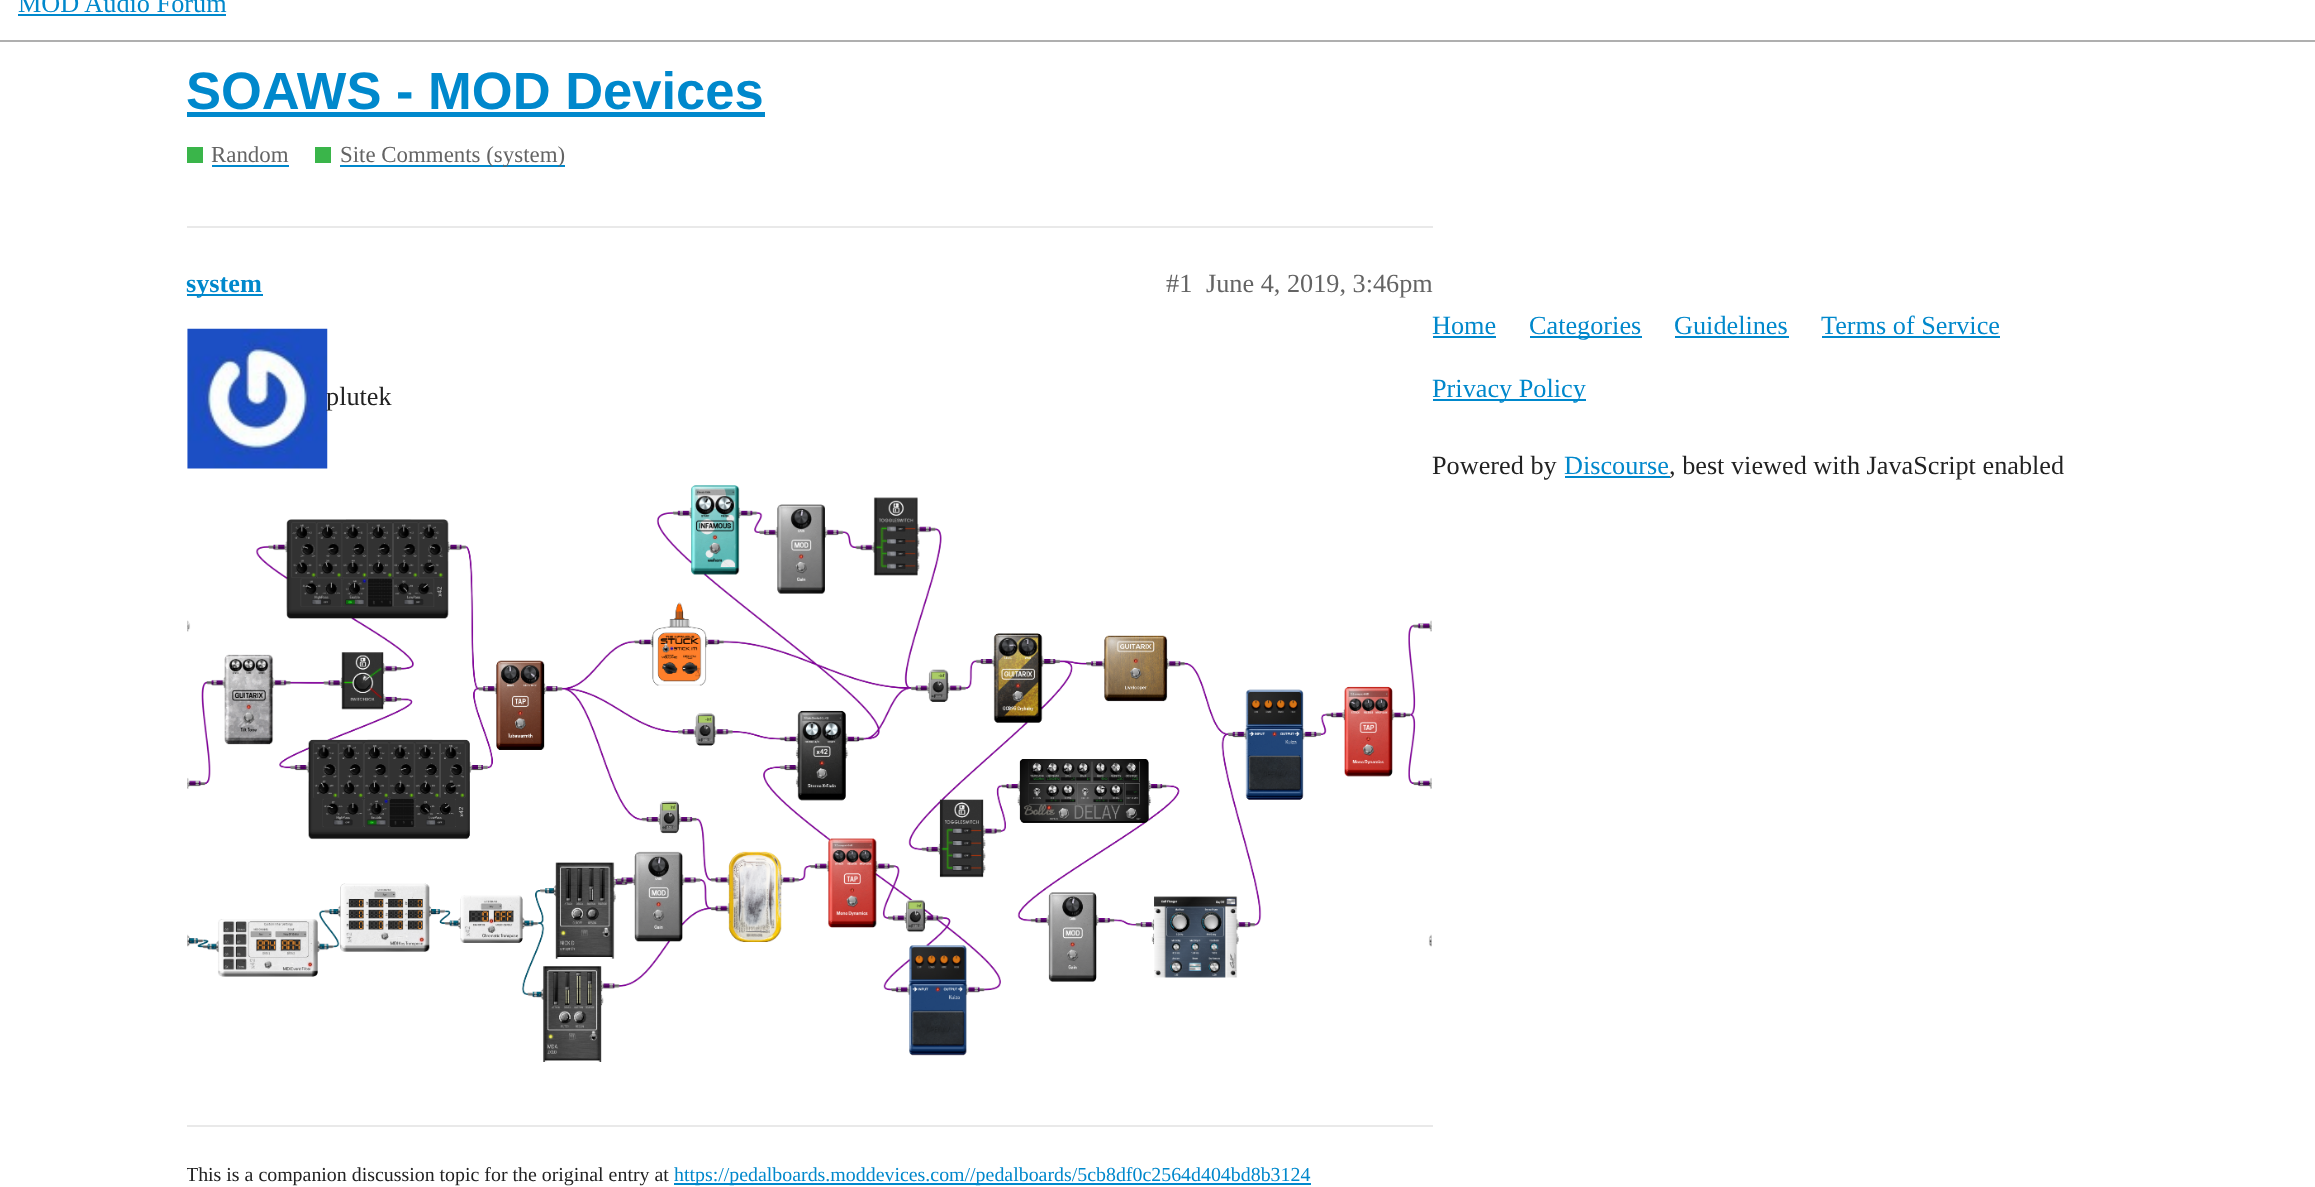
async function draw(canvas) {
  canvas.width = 2315
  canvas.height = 1187
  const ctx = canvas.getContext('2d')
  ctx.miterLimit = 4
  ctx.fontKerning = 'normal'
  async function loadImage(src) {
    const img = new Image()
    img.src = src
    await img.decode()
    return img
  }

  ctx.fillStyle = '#fff'
  ctx.fillRect(0, 0, 2315, 1187)
  ctx.fillStyle = '#afafaf'
  ctx.fillRect(0, 40, 2315, 2)
  ctx.font = '26.25px Liberation Serif'
  ctx.fillStyle = '#08c'
  ctx.fillText('MOD Audio Forum', 18, 12)
  ctx.fillRect(18, 14, 208, 2)
  ctx.font = 'bold 52.5px Liberation Sans'
  ctx.fillText('SOAWS - MOD Devices', 186, 109)
  ctx.fillRect(187, 112, 578, 5)
  ctx.fillStyle = '#3ab54a'
  ctx.fillRect(187, 147, 16, 16)
  ctx.font = '22.9px Liberation Serif'
  ctx.fillStyle = '#646464'
  ctx.fillText('Random', 211, 162)
  ctx.fillStyle = '#08c'
  ctx.fillRect(212, 165, 77, 2)
  ctx.fillStyle = '#3ab54a'
  ctx.fillRect(315, 147, 16, 16)
  ctx.fillStyle = '#08c'
  ctx.fillRect(340, 165, 225, 2)
  ctx.fillStyle = '#646464'
  ctx.fillText('Site Comments (system)', 340, 162)
  ctx.fillStyle = '#e9e9e9'
  ctx.fillRect(187, 226, 1246, 2)
  ctx.fillStyle = '#08c'
  ctx.fillRect(187, 294, 76, 2)
  ctx.font = 'bold 26.25px Liberation Serif'
  ctx.fillText('system', 186, 292)
  ctx.font = '26.25px Liberation Serif'
  ctx.fillStyle = '#646464'
  ctx.fillText('#1', 1166, 292)
  ctx.fillText('June 4, 2019, 3:46pm', 1206, 292)
  ctx.drawImage(await loadImage('image0.png'), 187, 328, 141, 141)
  ctx.fillStyle = '#222'
  ctx.fillText('plutek', 326, 405)
  ctx.drawImage(await loadImage('image1.png'), 187, 485, 1245, 577)
  ctx.fillStyle = '#e9e9e9'
  ctx.fillRect(187, 1125, 1246, 2)
  ctx.save()
  ctx.beginPath()
  ctx.rect(187, 329, 1246, 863)
  ctx.clip()
  ctx.font = '19.9px Liberation Serif'
  ctx.fillStyle = '#222'
  ctx.fillText('This is a companion discussion topic for the original entry at', 186, 1181)
  ctx.restore()
  ctx.fillStyle = '#08c'
  ctx.fillRect(674, 1183, 637, 2)
  ctx.font = '19.9px Liberation Serif'
  ctx.fillText('https://pedalboards.moddevices.com//pedalboards/5cb8df0c2564d404bd8b3124', 674, 1181)
  ctx.font = '26.25px Liberation Serif'
  ctx.fillText('Home', 1432, 334)
  ctx.fillRect(1433, 336, 63, 2)
  ctx.fillRect(1530, 336, 112, 2)
  ctx.fillText('Categories', 1529, 334)
  ctx.fillText('Guidelines', 1674, 334)
  ctx.fillRect(1675, 336, 114, 2)
  ctx.fillText('Terms of Service', 1821, 334)
  ctx.fillRect(1822, 336, 178, 2)
  ctx.fillRect(1433, 399, 153, 2)
  ctx.fillText('Privacy Policy', 1432, 397)
  ctx.fillStyle = '#222'
  ctx.fillText('Powered by', 1432, 474)
  ctx.fillStyle = '#08c'
  ctx.fillText('Discourse', 1564, 474)
  ctx.fillRect(1565, 476, 105, 2)
  ctx.fillStyle = '#222'
  ctx.fillText(', best viewed with JavaScript enabled', 1669, 474)
}

draw(document.querySelector('canvas'))
